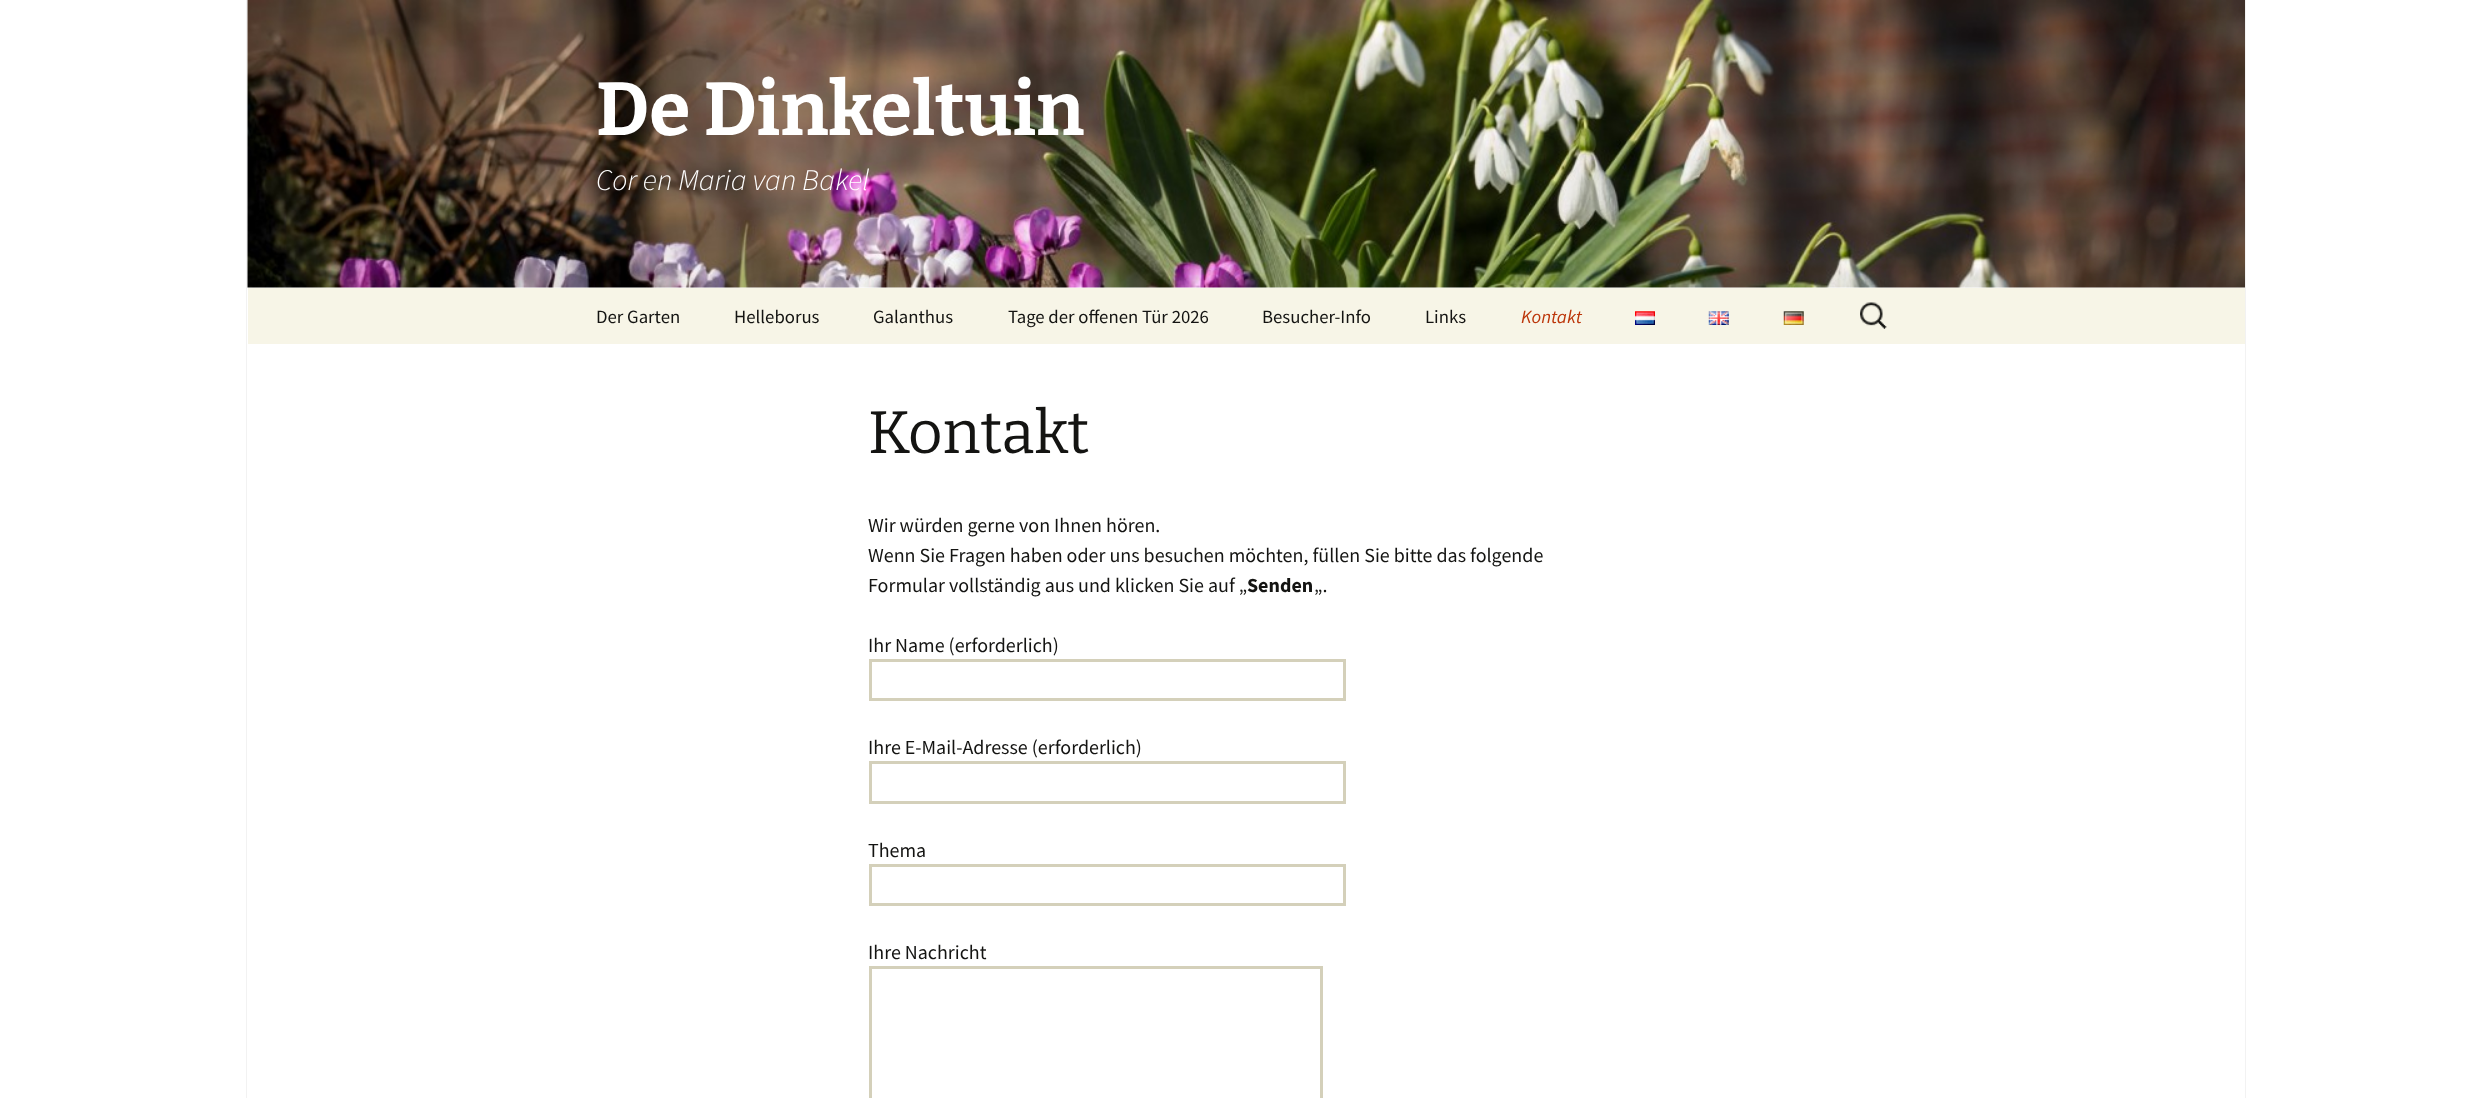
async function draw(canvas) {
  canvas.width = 2491
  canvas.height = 1098
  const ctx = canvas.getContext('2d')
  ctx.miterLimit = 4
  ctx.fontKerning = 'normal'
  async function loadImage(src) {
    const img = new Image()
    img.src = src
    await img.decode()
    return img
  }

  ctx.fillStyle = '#fff'
  ctx.fillRect(0, 0, 2491, 1098)
  ctx.fillStyle = '#f2f2f2'
  ctx.fillRect(2245, 0, 1, 1098)
  ctx.fillRect(246, 0, 1, 1098)
  ctx.drawImage(await loadImage('image0.png'), 247, 0, 1998, 288)
  ctx.font = 'bold 75px Bitter'
  ctx.fillStyle = '#fff'
  ctx.fillText('De Dinkeltuin', 596, 135)
  ctx.font = 'italic 300 30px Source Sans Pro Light'
  ctx.fillText('Cor en Maria van Bakel', 596, 190)
  ctx.fillStyle = '#f7f5e7'
  ctx.fillRect(248, 288, 1997, 56)
  ctx.font = '18.75px Source Sans Pro'
  ctx.fillStyle = '#141412'
  ctx.fillText('Der Garten', 596, 323)
  ctx.fillText('Helleborus', 734, 323)
  ctx.fillText('Galanthus', 873, 323)
  ctx.fillText('Tage der offenen Tür 2026', 1008, 323)
  ctx.fillText('Besucher-Info', 1262, 323)
  ctx.fillText('Links', 1425, 323)
  ctx.font = 'italic 18.75px Source Sans Pro'
  ctx.fillStyle = '#bc360a'
  ctx.fillText('Kontakt', 1521, 323)
  ctx.drawImage(await loadImage('image1.png'), 1635, 311, 20, 14)
  ctx.drawImage(await loadImage('image2.png'), 1708, 311, 21, 14)
  ctx.drawImage(await loadImage('image3.png'), 1783, 311, 21, 14)
  ctx.drawImage(await loadImage('image4.png'), 1860, 302, 27, 27)
  ctx.font = '60px Bitter'
  ctx.fillStyle = '#141412'
  ctx.fillText('Kontakt', 868, 453)
  ctx.font = '20px Source Sans Pro'
  ctx.fillText('Wir würden gerne von Ihnen hören.', 868, 532)
  ctx.fillText('Wenn Sie Fragen haben oder uns besuchen möchten, füllen Sie bitte das folgende', 868, 562)
  ctx.fillText('Formular vollständig aus und klicken Sie auf „', 868, 592)
  ctx.font = 'bold 20px Source Sans Pro'
  ctx.fillText('Senden', 1247, 592)
  ctx.font = '20px Source Sans Pro'
  ctx.fillText('„.', 1314, 592)
  ctx.fillText('Ihr Name (erforderlich)', 868, 652)
  ctx.strokeStyle = '#d4d0ba'
  ctx.lineWidth = 3
  ctx.strokeRect(870.5, 660.5, 474, 39)
  ctx.fillText('Ihre E-Mail-Adresse (erforderlich)', 868, 754)
  ctx.strokeRect(870.5, 762.5, 474, 40)
  ctx.fillText('Thema', 868, 857)
  ctx.strokeRect(870.5, 865.5, 474, 39)
  ctx.fillText('Ihre Nachricht', 868, 959)
  ctx.strokeRect(870.5, 967.5, 451, 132)
}

draw(document.querySelector('canvas'))
